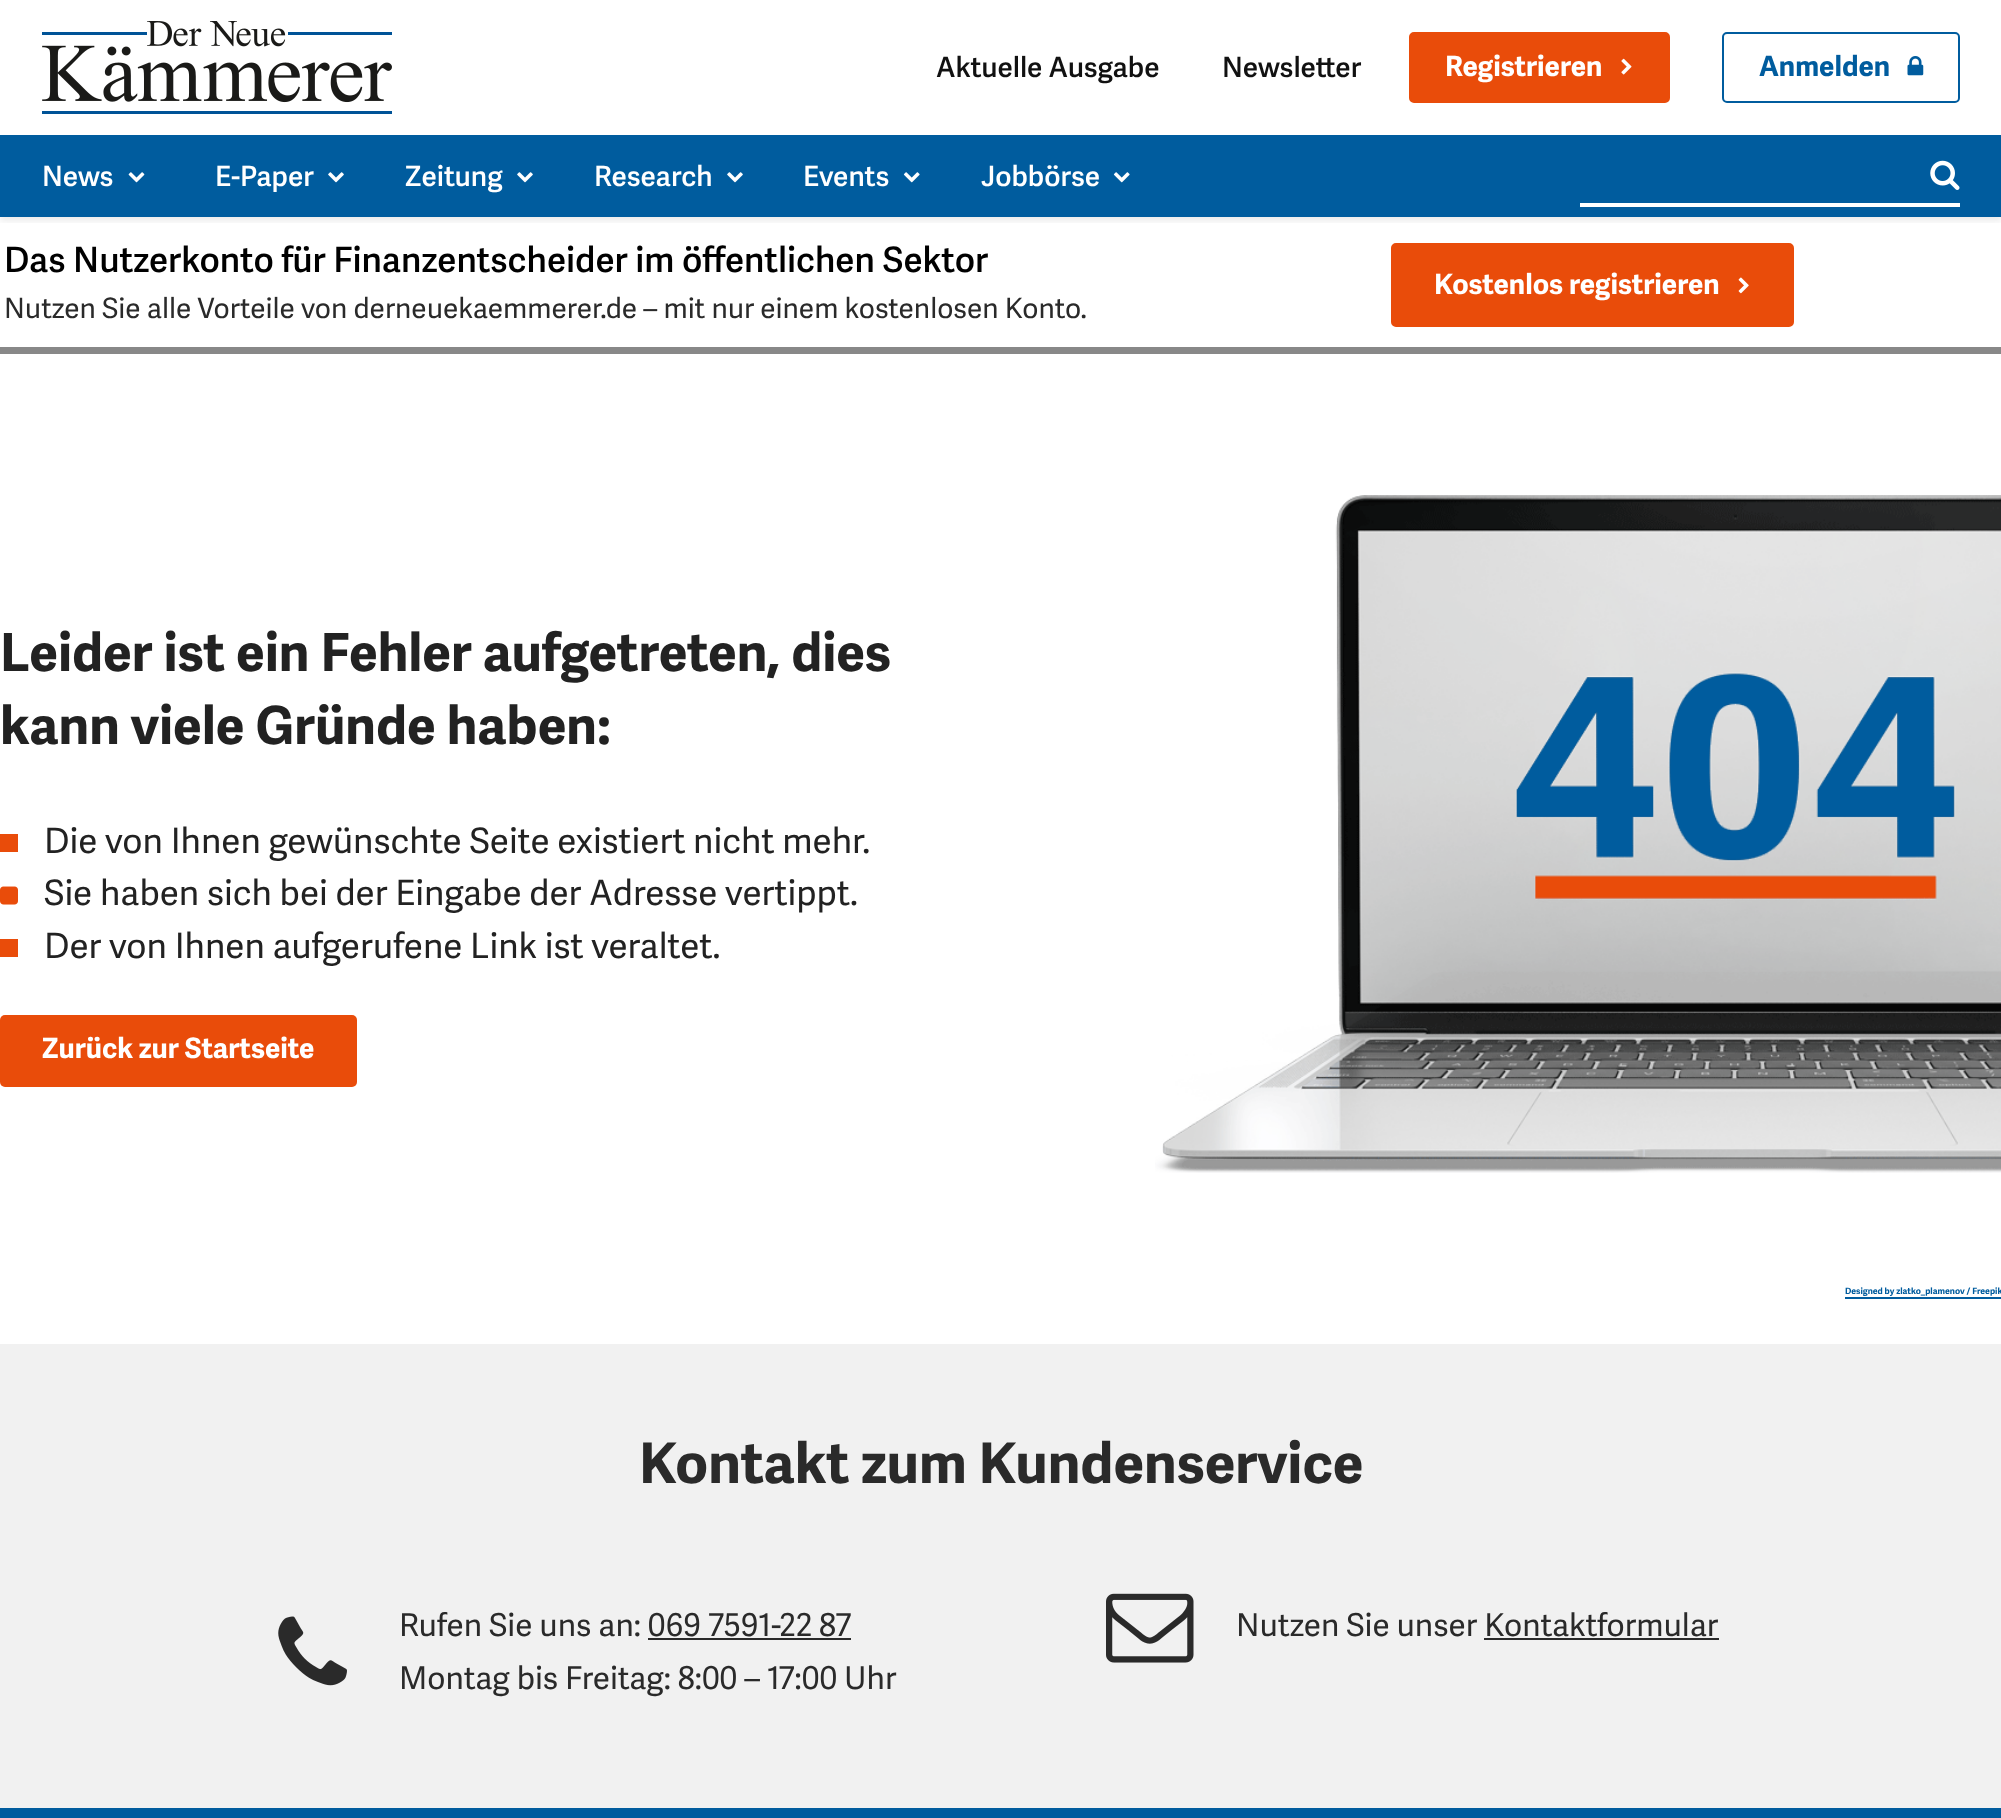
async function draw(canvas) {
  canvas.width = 2001
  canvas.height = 1818
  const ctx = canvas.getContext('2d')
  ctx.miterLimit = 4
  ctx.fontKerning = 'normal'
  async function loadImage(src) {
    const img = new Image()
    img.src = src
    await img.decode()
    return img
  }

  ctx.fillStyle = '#fff'
  ctx.fillRect(0, 0, 2001, 1818)
  ctx.drawImage(await loadImage('image0.png'), 42, 21, 350, 93)
  ctx.font = '600 28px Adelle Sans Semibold'
  ctx.fillStyle = '#111'
  ctx.fillText('Aktuelle Ausgabe', 936, 77)
  ctx.fillText('Newsletter', 1222, 77)
  ctx.fillStyle = '#e94c0a'
  ctx.beginPath()
  ctx.roundRect(1410, 33, 259, 69, 4)
  ctx.fill()
  ctx.strokeStyle = '#e94c0a'
  ctx.lineWidth = 2
  ctx.stroke()
  ctx.font = 'bold 28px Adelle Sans'
  ctx.fillStyle = '#fff'
  ctx.fillText('Registrieren', 1445, 76)
  ctx.drawImage(await loadImage('image1.png'), 1621, 58, 11, 17)
  ctx.beginPath()
  ctx.roundRect(1723, 33, 236, 69, 4)
  ctx.strokeStyle = '#005c9e'
  ctx.stroke()
  ctx.fillStyle = '#005c9e'
  ctx.fillText('Anmelden', 1759, 76)
  ctx.drawImage(await loadImage('image2.png'), 1907, 56, 17, 20)
  ctx.fillRect(0, 135, 2001, 82)
  ctx.fillStyle = '#fff'
  ctx.fillRect(1580, 203, 380, 4)
  ctx.drawImage(await loadImage('image6.png'), 1930, 160, 30, 30)
  ctx.save()
  ctx.beginPath()
  ctx.rect(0, 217, 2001, 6)
  ctx.clip()
  ctx.fillStyle = '#00000014'
  ctx.filter = 'blur(3.5px)'
  ctx.beginPath()
  ctx.rect(0, 138, 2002, 83)
  ctx.fill()
  ctx.filter = 'none'
  ctx.restore()
  ctx.font = '600 28px Adelle Sans Semibold'
  ctx.fillText('News', 42, 186)
  ctx.drawImage(await loadImage('image3.png'), 128, 172, 17, 11)
  ctx.fillText('E-Paper', 215, 186)
  ctx.drawImage(await loadImage('image4.png'), 328, 172, 16, 11)
  ctx.fillText('Zeitung', 405, 186)
  ctx.drawImage(await loadImage('image4.png'), 517, 172, 16, 11)
  ctx.fillText('Research', 594, 186)
  ctx.drawImage(await loadImage('image4.png'), 727, 172, 16, 11)
  ctx.fillText('Events', 803, 186)
  ctx.drawImage(await loadImage('image5.png'), 903, 172, 17, 11)
  ctx.fillText('Jobbörse', 981, 186)
  ctx.drawImage(await loadImage('image5.png'), 1113, 172, 17, 11)
  ctx.font = '600 35px Adelle Sans Semibold'
  ctx.fillStyle = '#000'
  ctx.fillText('Das Nutzerkonto für Finanzentscheider im öffentlichen Sektor', 4, 272)
  ctx.font = '28px Adelle Sans'
  ctx.fillStyle = '#2a2a2a'
  ctx.fillText('Nutzen Sie alle Vorteile von derneuekaemmerer.de – mit nur einem kostenlosen Konto.', 4, 318)
  ctx.fillStyle = '#e94c0a'
  ctx.beginPath()
  ctx.roundRect(1392, 244, 401, 82, 4)
  ctx.fill()
  ctx.strokeStyle = '#e94c0a'
  ctx.stroke()
  ctx.font = 'bold 28px Adelle Sans'
  ctx.fillStyle = '#fff'
  ctx.fillText('Kostenlos registrieren', 1434, 294)
  ctx.drawImage(await loadImage('image7.png'), 1738, 277, 11, 17)
  ctx.fillStyle = '#888'
  ctx.fillRect(0, 347, 2001, 7)
  ctx.font = 'bold 52.5px Adelle Sans'
  ctx.fillStyle = '#222'
  ctx.fillText('Leider ist ein Fehler aufgetreten, dies', 0, 671)
  ctx.fillText('kann viele Gründe haben:', 0, 744)
  ctx.fillStyle = '#e94c0a'
  ctx.fillRect(0, 834, 18, 18)
  ctx.font = '35px Adelle Sans'
  ctx.fillStyle = '#222'
  ctx.fillText('Die von Ihnen gewünschte Seite existiert nicht mehr.', 44, 853)
  ctx.drawImage(await loadImage('image8.png'), 0, 886, 18, 19)
  ctx.fillText('Sie haben sich bei der Eingabe der Adresse vertippt.', 44, 905)
  ctx.fillStyle = '#e94c0a'
  ctx.fillRect(0, 939, 18, 18)
  ctx.fillStyle = '#222'
  ctx.fillText('Der von Ihnen aufgerufene Link ist veraltet.', 44, 958)
  ctx.fillStyle = '#e94c0a'
  ctx.beginPath()
  ctx.roundRect(0, 1015, 357, 72, 5)
  ctx.fill()
  ctx.font = 'bold 28px Adelle Sans'
  ctx.fillStyle = '#fff'
  ctx.fillText('Zurück zur Startseite', 42, 1058)
  ctx.drawImage(await loadImage('image9.png'), 1155, 495, 846, 678)
  ctx.font = 'bold 8.75px Adelle Sans'
  ctx.fillStyle = '#005c9e'
  ctx.fillText('Designed by zlatko_plamenov / Freepik', 1845, 1294)
  ctx.fillRect(1845, 1297, 156, 2)
  ctx.fillStyle = '#f1f1f1'
  ctx.fillRect(0, 1344, 2001, 464)
  ctx.font = 'bold 56px Adelle Sans'
  ctx.fillStyle = '#2a2a2a'
  ctx.fillText('Kontakt zum Kundenservice', 639, 1483)
  ctx.drawImage(await loadImage('image10.png'), 278, 1616, 69, 70)
  ctx.font = '31.5px Adelle Sans'
  ctx.fillText('Rufen Sie uns an: 069 7591-22 87', 399, 1636)
  ctx.fillRect(648, 1638, 203, 2)
  ctx.fillText('Montag bis Freitag: 8:00 – 17:00 Uhr', 399, 1689)
  ctx.drawImage(await loadImage('image11.png'), 1106, 1593, 88, 70)
  ctx.fillText('Nutzen Sie unser Kontaktformular', 1236, 1636)
  ctx.fillRect(1484, 1638, 235, 2)
  ctx.fillStyle = '#005c9e'
  ctx.fillRect(0, 1808, 2001, 10)
}

draw(document.querySelector('canvas'))
